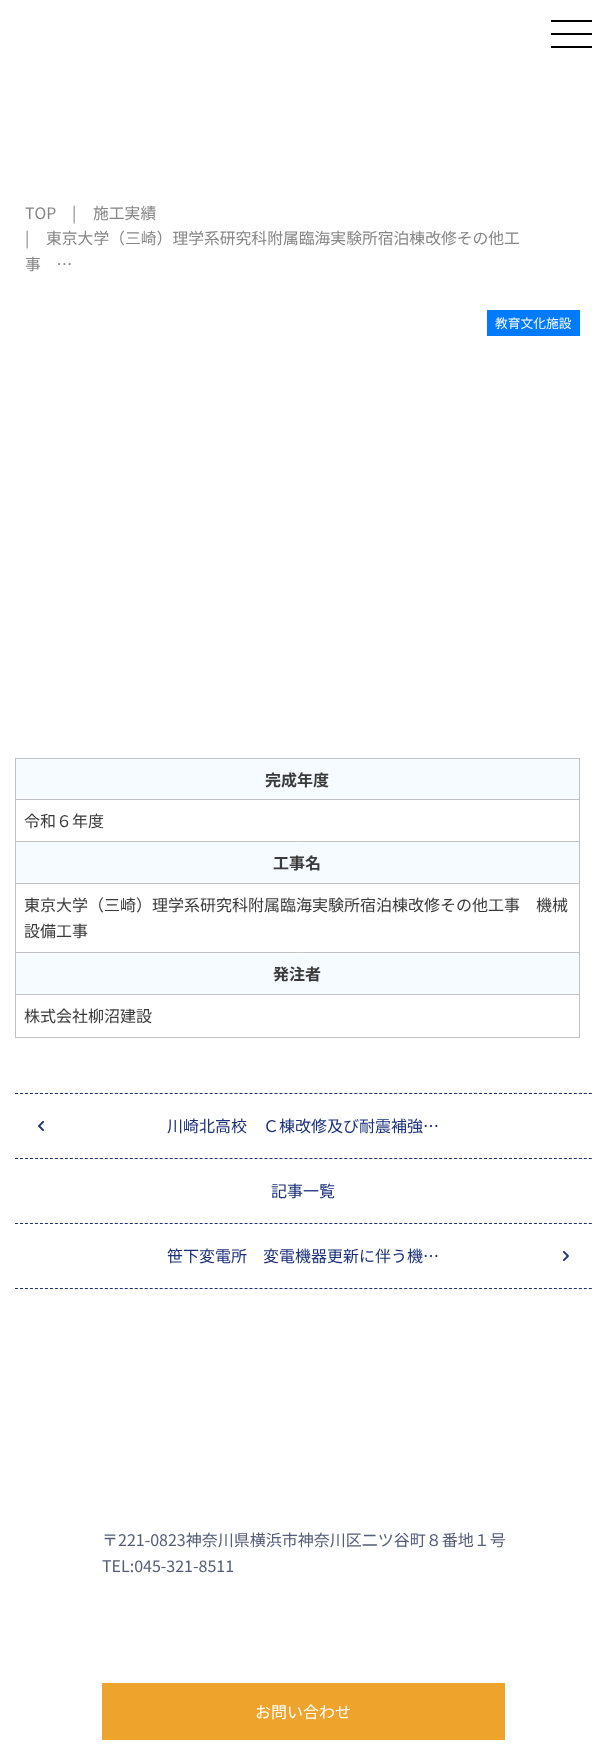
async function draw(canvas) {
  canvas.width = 607
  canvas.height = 1761
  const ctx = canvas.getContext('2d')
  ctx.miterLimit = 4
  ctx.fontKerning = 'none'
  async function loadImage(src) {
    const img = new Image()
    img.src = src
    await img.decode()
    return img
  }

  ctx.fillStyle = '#fff'
  ctx.fillRect(0, 0, 607, 1761)
  ctx.fillStyle = '#000'
  ctx.fillRect(551, 20, 41, 2)
  ctx.fillRect(551, 33, 41, 2)
  ctx.fillRect(551, 46, 41, 2)
  ctx.font = '15.8px Noto Sans JP'
  ctx.fillStyle = '#868686'
  ctx.fillText('TOP', 25, 219)
  ctx.fillText('|', 72, 219)
  ctx.fillText('施工実績', 93, 219)
  ctx.fillText('|', 25, 244)
  ctx.fillText('東京大学（三崎）理学系研究科附属臨海実験所宿泊棟改修その他工', 46, 244)
  ctx.fillText('事　…', 25, 270)
  ctx.fillStyle = '#007aff'
  ctx.fillRect(487, 310, 93, 26)
  ctx.font = '12.75px Noto Sans JP'
  ctx.fillStyle = '#fff'
  ctx.fillText('教育文化施設', 495, 328)
  ctx.fillStyle = '#f5fbff'
  ctx.fillRect(16, 759, 563, 40)
  ctx.fillStyle = '#c1c1c1'
  ctx.fillRect(15, 758, 565, 1)
  ctx.fillRect(579, 758, 1, 42)
  ctx.fillRect(15, 758, 1, 42)
  ctx.font = 'bold 16px Noto Sans JP'
  ctx.fillStyle = '#3a3a3a'
  ctx.fillText('完成年度', 265, 786)
  ctx.fillStyle = '#c1c1c1'
  ctx.fillRect(15, 799, 565, 1)
  ctx.fillRect(579, 799, 1, 43)
  ctx.fillRect(15, 799, 1, 43)
  ctx.font = '16px Noto Sans JP'
  ctx.fillStyle = '#3a3a3a'
  ctx.fillText('令和６年度', 24, 827)
  ctx.fillStyle = '#f5fbff'
  ctx.beginPath()
  ctx.rect(15.5, 841.5, 564, 42)
  ctx.fill()
  ctx.strokeStyle = '#c1c1c1'
  ctx.stroke()
  ctx.font = 'bold 16px Noto Sans JP'
  ctx.fillStyle = '#3a3a3a'
  ctx.fillText('工事名', 273, 869)
  ctx.strokeRect(15.5, 883.5, 564, 69)
  ctx.font = '16px Noto Sans JP'
  ctx.fillText('東京大学（三崎）理学系研究科附属臨海実験所宿泊棟改修その他工事　機械', 24, 911)
  ctx.fillText('設備工事', 24, 937)
  ctx.fillStyle = '#f5fbff'
  ctx.beginPath()
  ctx.rect(15.5, 952.5, 564, 42)
  ctx.fill()
  ctx.stroke()
  ctx.font = 'bold 16px Noto Sans JP'
  ctx.fillStyle = '#3a3a3a'
  ctx.fillText('発注者', 273, 980)
  ctx.strokeRect(15.5, 994.5, 564, 43)
  ctx.font = '16px Noto Sans JP'
  ctx.fillText('株式会社柳沼建設', 24, 1022)
  ctx.beginPath()
  ctx.moveTo(15, 1093.5)
  ctx.lineTo(592, 1093.5)
  ctx.strokeStyle = '#1b3079'
  ctx.setLineDash([3, 1.99])
  ctx.stroke()
  ctx.beginPath()
  ctx.moveTo(15, 1158.5)
  ctx.lineTo(592, 1158.5)
  ctx.stroke()
  ctx.drawImage(await loadImage('image0.png'), 38, 1121, 6, 10)
  ctx.fillStyle = '#1b3079'
  ctx.fillText('川崎北高校　Ｃ棟改修及び耐震補強…', 167, 1132)
  ctx.fillText('記事一覧', 271, 1197)
  ctx.beginPath()
  ctx.moveTo(15, 1223.5)
  ctx.lineTo(592, 1223.5)
  ctx.stroke()
  ctx.beginPath()
  ctx.moveTo(15, 1288.5)
  ctx.lineTo(592, 1288.5)
  ctx.stroke()
  ctx.fillText('笹下変電所　変電機器更新に伴う機…', 167, 1262)
  ctx.drawImage(await loadImage('image1.png'), 563, 1251, 6, 10)
  ctx.fillStyle = '#545c77'
  ctx.fillText('〒221-0823神奈川県横浜市神奈川区二ツ谷町８番地１号', 102, 1546)
  ctx.fillText('TEL:045-321-8511', 102, 1572)
  ctx.fillStyle = '#eda32c'
  ctx.fillRect(102, 1683, 403, 57)
  ctx.fillStyle = '#fff'
  ctx.fillText('お問い合わせ', 255, 1718)
}

draw(document.querySelector('canvas'))
